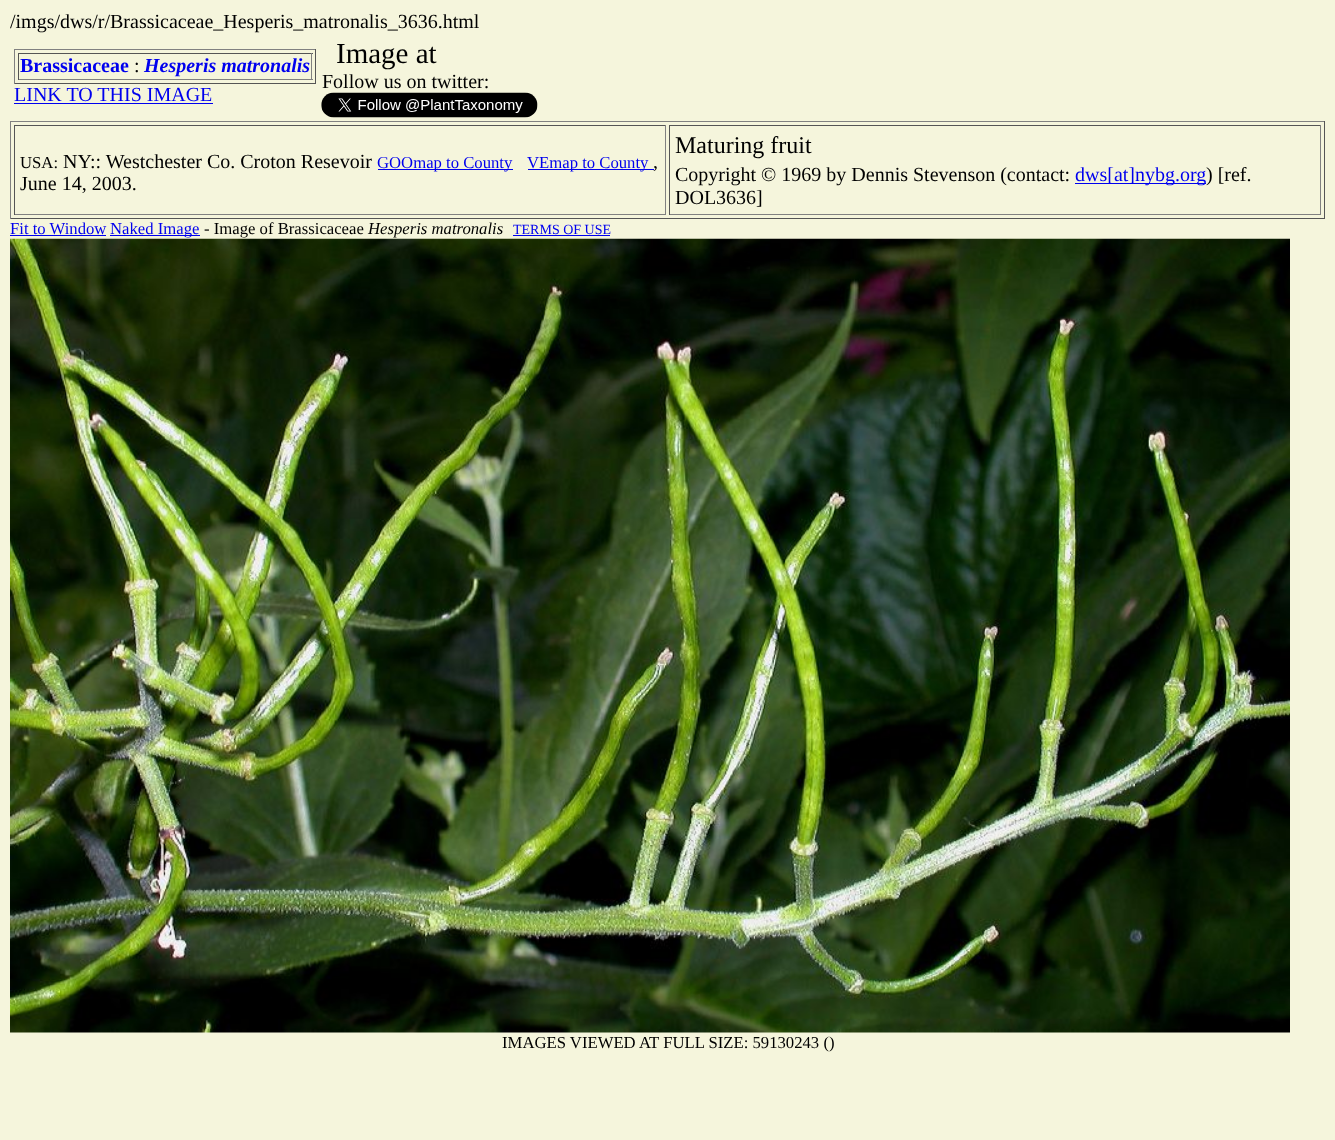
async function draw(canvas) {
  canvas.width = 1335
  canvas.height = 1140
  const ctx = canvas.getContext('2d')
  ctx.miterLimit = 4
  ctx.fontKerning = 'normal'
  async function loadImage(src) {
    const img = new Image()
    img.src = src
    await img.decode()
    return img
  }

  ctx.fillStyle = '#f5f5dc'
  ctx.fillRect(0, 0, 1335, 1140)
  ctx.font = '20px Liberation Serif'
  ctx.fillStyle = '#000'
  ctx.fillText('/imgs/dws/r/Brassicaceae_Hesperis_matronalis_3636.html', 10, 28)
  ctx.fillStyle = '#808080'
  ctx.fillRect(14, 49, 302, 1)
  ctx.fillStyle = '#555'
  ctx.fillRect(315, 49, 1, 35)
  ctx.fillRect(14, 83, 302, 1)
  ctx.fillStyle = '#808080'
  ctx.fillRect(14, 49, 1, 35)
  ctx.fillStyle = '#555'
  ctx.fillRect(18, 53, 295, 1)
  ctx.fillStyle = '#808080'
  ctx.fillRect(311, 53, 1, 27)
  ctx.fillRect(18, 79, 295, 1)
  ctx.fillStyle = '#555'
  ctx.fillRect(18, 53, 1, 27)
  ctx.font = 'bold 20px Liberation Serif'
  ctx.fillStyle = '#00e'
  ctx.fillText('Brassicaceae', 20, 72)
  ctx.font = '20px Liberation Serif'
  ctx.fillStyle = '#000'
  ctx.fillText(':', 134, 72)
  ctx.font = 'italic bold 20px Liberation Serif'
  ctx.fillStyle = '#00e'
  ctx.fillText('Hesperis matronalis', 144, 72)
  ctx.font = '20px Liberation Serif'
  ctx.fillText('LINK TO THIS IMAGE', 14, 101)
  ctx.fillRect(14, 103, 199, 1)
  ctx.font = '29px Liberation Serif'
  ctx.fillStyle = '#000'
  ctx.fillText('Image at', 336, 63)
  ctx.font = '20px Liberation Serif'
  ctx.fillText('Follow us on twitter:', 322, 88)
  ctx.drawImage(await loadImage('image0.png'), 321, 92, 217, 26)
  ctx.fillStyle = '#808080'
  ctx.fillRect(10, 121, 1315, 1)
  ctx.fillStyle = '#555'
  ctx.fillRect(1324, 121, 1, 98)
  ctx.fillRect(10, 218, 1315, 1)
  ctx.fillStyle = '#808080'
  ctx.fillRect(10, 121, 1, 98)
  ctx.fillStyle = '#555'
  ctx.fillRect(14, 125, 652, 1)
  ctx.fillStyle = '#808080'
  ctx.fillRect(665, 125, 1, 90)
  ctx.fillRect(14, 214, 652, 1)
  ctx.fillStyle = '#555'
  ctx.fillRect(14, 125, 1, 90)
  ctx.font = '16.7px Liberation Serif'
  ctx.fillStyle = '#000'
  ctx.fillText('USA:', 20, 168)
  ctx.font = '20px Liberation Serif'
  ctx.fillText('NY:: Westchester Co. Croton Resevoir', 63, 168)
  ctx.fillStyle = '#00e'
  ctx.fillRect(378, 169, 135, 1)
  ctx.font = '16.7px Liberation Serif'
  ctx.fillText('GOOmap to County', 377, 168)
  ctx.fillRect(528, 169, 126, 1)
  ctx.fillText('VEmap to County', 527, 168)
  ctx.font = '20px Liberation Serif'
  ctx.fillStyle = '#000'
  ctx.fillText(',', 653, 168)
  ctx.fillText('June 14, 2003.', 20, 190)
  ctx.fillStyle = '#555'
  ctx.fillRect(669, 125, 652, 1)
  ctx.fillStyle = '#808080'
  ctx.fillRect(1320, 125, 1, 90)
  ctx.fillRect(669, 214, 652, 1)
  ctx.fillStyle = '#555'
  ctx.fillRect(669, 125, 1, 90)
  ctx.font = '24px Liberation Serif'
  ctx.fillStyle = '#000'
  ctx.fillText('Maturing fruit', 675, 153)
  ctx.font = '20px Liberation Serif'
  ctx.fillText('Copyright © 1969 by Dennis Stevenson (contact:', 675, 181)
  ctx.fillStyle = '#00e'
  ctx.fillRect(1075, 183, 131, 1)
  ctx.fillText('dws[at]nybg.org', 1075, 181)
  ctx.fillStyle = '#000'
  ctx.fillText(') [ref.', 1206, 181)
  ctx.fillText('DOL3636]', 675, 204)
  ctx.font = '16.7px Liberation Serif'
  ctx.fillStyle = '#00e'
  ctx.fillText('Fit to Window', 10, 234)
  ctx.fillRect(10, 235, 96, 1)
  ctx.fillRect(110, 235, 90, 1)
  ctx.fillText('Naked Image', 110, 234)
  ctx.fillStyle = '#000'
  ctx.fillText('- Image of Brassicaceae', 204, 234)
  ctx.font = 'italic 16.7px Liberation Serif'
  ctx.fillText('Hesperis matronalis', 368, 234)
  ctx.font = '14px Liberation Serif'
  ctx.fillStyle = '#00e'
  ctx.fillText('TERMS OF USE', 513, 234)
  ctx.fillRect(513, 235, 97, 1)
  ctx.drawImage(await loadImage('image1.png'), 10, 238, 1280, 795)
  ctx.font = '16.7px Liberation Serif'
  ctx.fillStyle = '#000'
  ctx.fillText('IMAGES VIEWED AT FULL SIZE: 59130243 ()', 502, 1048)
}

draw(document.querySelector('canvas'))
